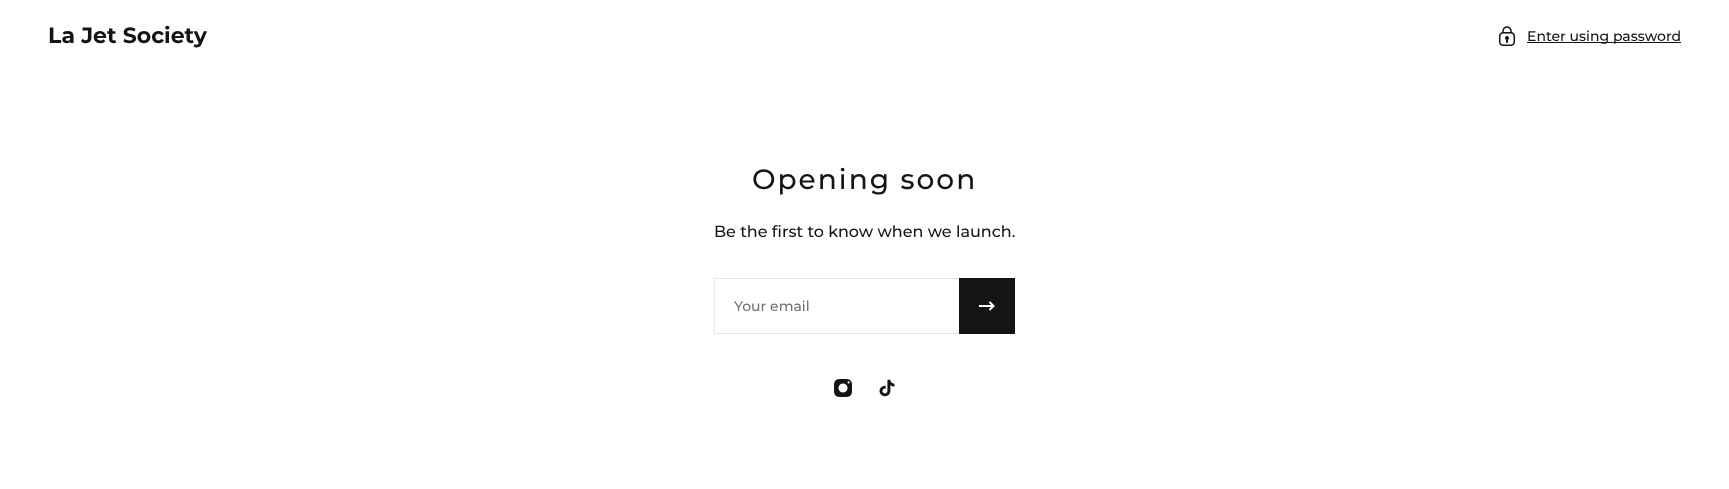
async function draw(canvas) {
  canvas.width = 1729
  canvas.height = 489
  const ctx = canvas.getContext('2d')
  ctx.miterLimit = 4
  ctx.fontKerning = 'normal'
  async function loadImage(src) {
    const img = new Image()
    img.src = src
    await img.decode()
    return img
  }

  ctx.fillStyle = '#fff'
  ctx.fillRect(0, 0, 1729, 489)
  ctx.font = 'bold 22px Montserrat'
  ctx.fillStyle = '#141416'
  ctx.fillText('La Jet Society', 48, 43)
  ctx.drawImage(await loadImage('image0.png'), 1499, 26, 16, 20)
  ctx.fillRect(1527, 42, 154, 1)
  ctx.font = '500 14px Montserrat'
  ctx.fillText('Enter using password', 1527, 41)
  ctx.letterSpacing = '2px'
  ctx.font = '500 28px Montserrat'
  ctx.fillText('Opening soon', 752, 189)
  ctx.letterSpacing = '0px'
  ctx.font = '500 16px Montserrat'
  ctx.fillText('Be the first to know when we launch.', 714, 237)
  ctx.strokeStyle = '#e7e7e7'
  ctx.strokeRect(714.5, 278.5, 300, 55)
  ctx.font = '500 14px Montserrat'
  ctx.fillStyle = '#727273'
  ctx.fillText('Your email', 734, 311)
  ctx.fillStyle = '#141416'
  ctx.fillRect(959, 278, 56, 56)
  ctx.fillStyle = '#fff'
  ctx.fillRect(979, 305, 15, 2)
  ctx.beginPath()
  ctx.moveTo(989.5, 302)
  ctx.lineTo(993.5, 306)
  ctx.lineTo(989.5, 310)
  ctx.strokeStyle = '#fff'
  ctx.lineWidth = 2
  ctx.stroke()
  ctx.drawImage(await loadImage('image1.png'), 834, 379, 18, 18)
  ctx.drawImage(await loadImage('image2.png'), 879, 379, 16, 18)
  ctx.beginPath()
  ctx.arc(865, 425, 32, 0, 2 * Math.PI)
  ctx.fill()
}

draw(document.querySelector('canvas'))
